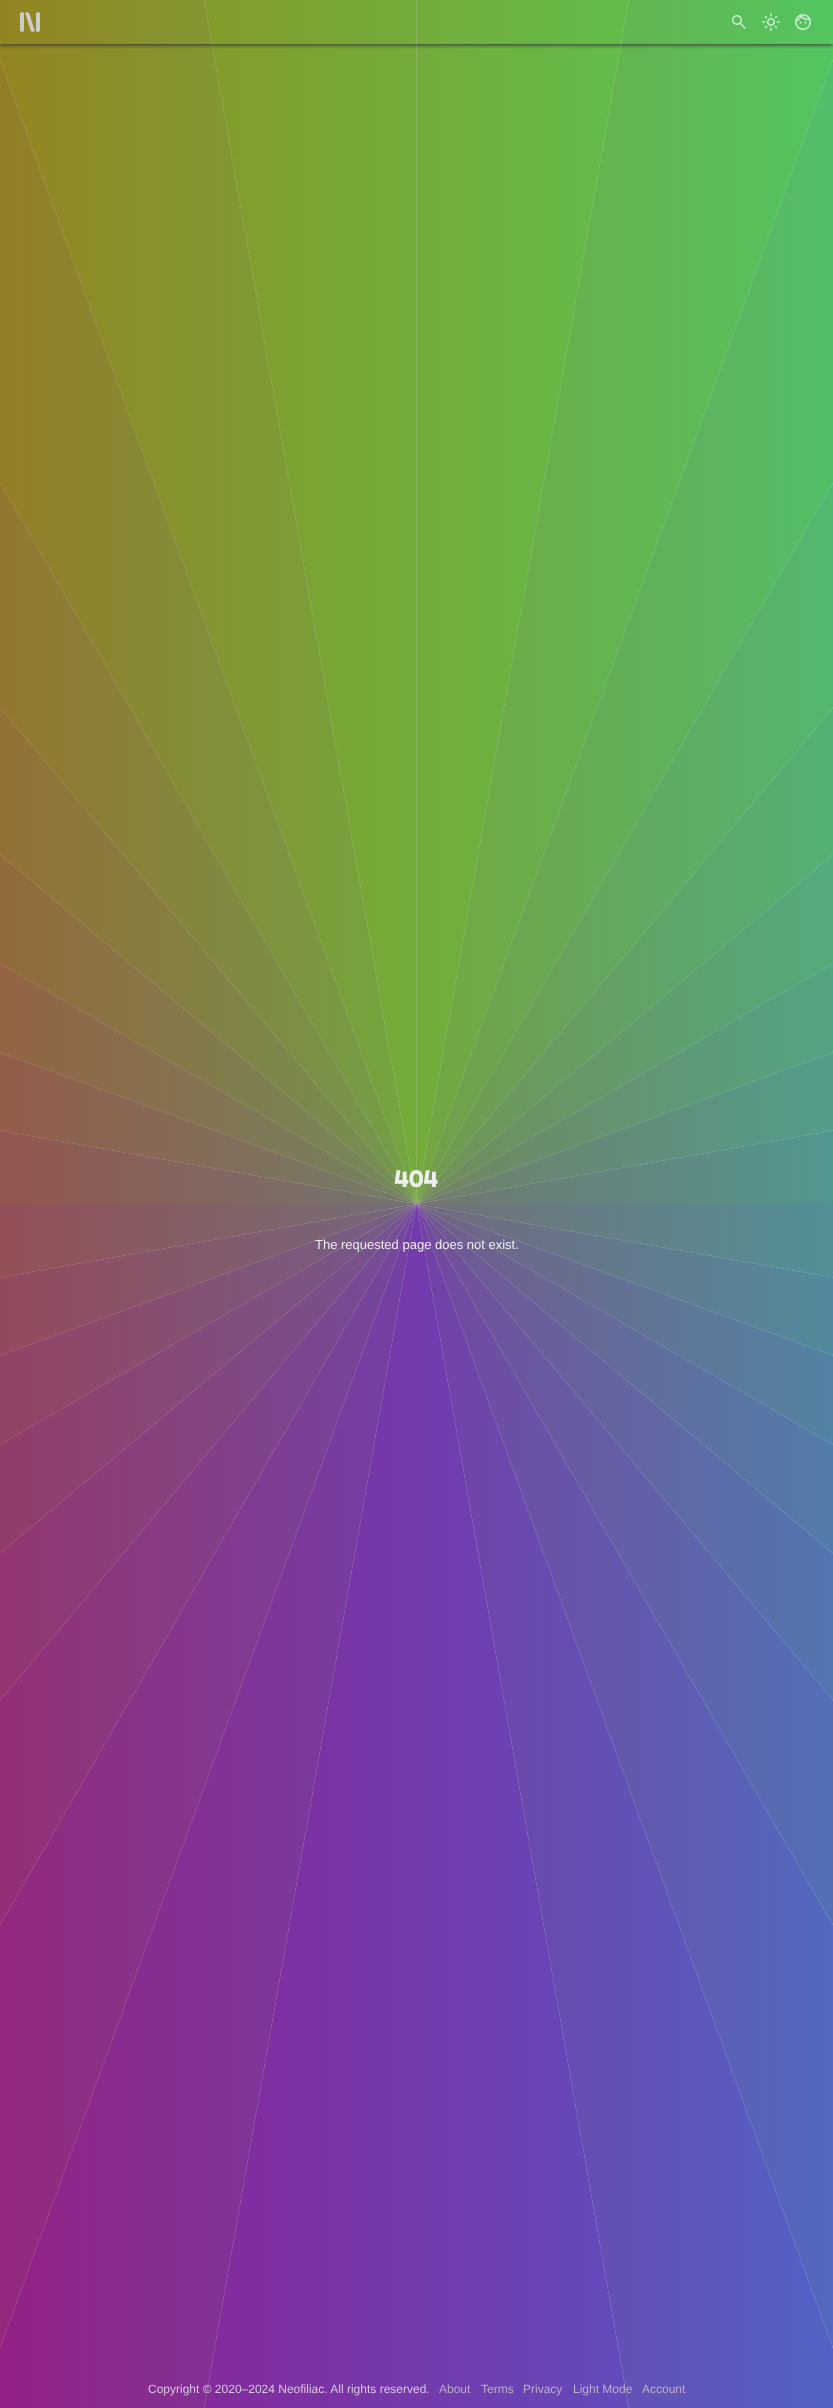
async function draw(canvas) {
  canvas.width = 833
  canvas.height = 2408
  const ctx = canvas.getContext('2d')
  ctx.miterLimit = 4
  ctx.fontKerning = 'normal'
  async function loadImage(src) {
    const img = new Image()
    img.src = src
    await img.decode()
    return img
  }
  let gradient

  ctx.fillStyle = '#fff'
  ctx.fillRect(0, 0, 833, 2408)
  ctx.drawImage(await loadImage('image0.png'), 0, 0, 833, 2408)
  gradient = ctx.createLinearGradient(0, 1204, 833, 1204)
  gradient.addColorStop(0, '#cf171759')
  gradient.addColorStop(1, '#17cfcf59')
  ctx.fillStyle = gradient
  ctx.fillRect(0, 0, 833, 2408)
  ctx.save()
  ctx.beginPath()
  ctx.rect(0, 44, 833, 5)
  ctx.clip()
  ctx.fillStyle = '#333'
  ctx.filter = 'blur(2px)'
  ctx.beginPath()
  ctx.rect(0, 1, 833, 44)
  ctx.fill()
  ctx.filter = 'none'
  ctx.restore()
  ctx.fillStyle = '#ccc'
  ctx.beginPath()
  ctx.roundRect(20, 12, 4, 20, 2)
  ctx.fill()
  ctx.beginPath()
  ctx.moveTo(26.5, 12)
  ctx.bezierCurveTo(28, 12, 29, 13, 29.5, 14)
  ctx.lineTo(34.5, 30)
  ctx.bezierCurveTo(35, 31, 34.5, 32, 33.5, 32)
  ctx.bezierCurveTo(32, 32, 31, 31, 30.5, 30)
  ctx.lineTo(25.5, 14)
  ctx.bezierCurveTo(25, 13, 25.5, 12, 26.5, 12)
  ctx.closePath()
  ctx.fill()
  ctx.beginPath()
  ctx.roundRect(36, 12, 4, 20, 2)
  ctx.fill()
  ctx.drawImage(await loadImage('image1.png'), 732, 15, 14, 14)
  ctx.drawImage(await loadImage('image2.png'), 762, 13, 18, 18)
  ctx.drawImage(await loadImage('image3.png'), 795, 14, 16, 16)
  ctx.font = 'bold 23px Righteous'
  ctx.fillStyle = '#eee'
  ctx.fillText('404', 394, 1187)
  ctx.font = '13px Liberation Sans'
  ctx.fillText('The requested page does not exist.', 315, 1249)
  ctx.font = '12px Liberation Sans'
  ctx.fillStyle = '#d7c8de'
  ctx.fillText('Copyright © 2020–2024 Neofiliac. All rights reserved.', 148, 2393)
  ctx.fillStyle = '#baafc6'
  ctx.fillText('About', 439, 2393)
  ctx.fillText('Terms', 481, 2393)
  ctx.fillText('Privacy', 523, 2393)
  ctx.fillText('Light Mode', 573, 2393)
  ctx.fillText('Account', 642, 2393)
}

draw(document.querySelector('canvas'))
